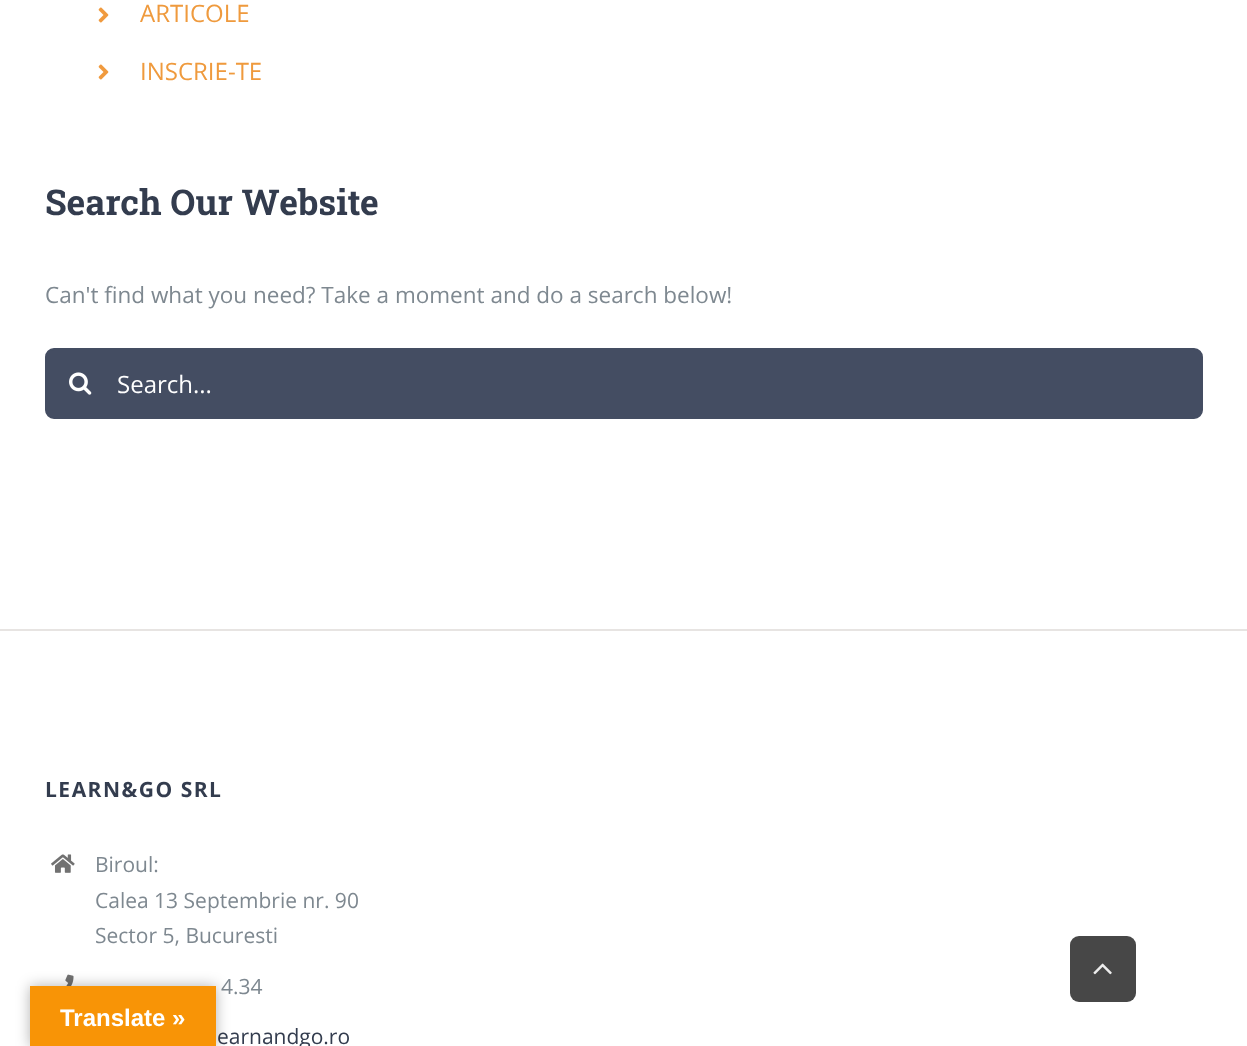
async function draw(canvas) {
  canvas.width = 1247
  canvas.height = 1046
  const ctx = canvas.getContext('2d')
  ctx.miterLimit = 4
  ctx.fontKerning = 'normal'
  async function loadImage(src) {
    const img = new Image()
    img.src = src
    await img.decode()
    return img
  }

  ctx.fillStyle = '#fff'
  ctx.fillRect(0, 0, 1247, 1046)
  ctx.drawImage(await loadImage('image0.png'), 98, 7, 11, 16)
  ctx.font = '24px Open Sans'
  ctx.fillStyle = '#ef9a3d'
  ctx.fillText('ARTICOLE', 140, 22)
  ctx.drawImage(await loadImage('image0.png'), 98, 64, 11, 16)
  ctx.fillText('INSCRIE-TE', 140, 80)
  ctx.font = 'bold 35.5px Roboto Slab'
  ctx.fillStyle = '#333c4e'
  ctx.fillText('Search Our Website', 45, 215)
  ctx.font = '22.5px Open Sans'
  ctx.fillStyle = '#7e8890'
  ctx.fillText('Can\'t find what you need? Take a moment and do a search below!', 45, 303)
  ctx.fillStyle = '#444d62'
  ctx.beginPath()
  ctx.roundRect(46, 349, 1156, 69, 8)
  ctx.fill()
  ctx.strokeStyle = '#444d62'
  ctx.lineWidth = 2
  ctx.stroke()
  ctx.drawImage(await loadImage('image1.png'), 69, 372, 23, 23)
  ctx.font = '24px Open Sans'
  ctx.fillStyle = '#fff'
  ctx.fillText('Search...', 117, 393)
  ctx.fillStyle = '#e7e4e2'
  ctx.fillRect(0, 629, 1247, 2)
  ctx.letterSpacing = '1.5px'
  ctx.font = 'bold 21px Open Sans'
  ctx.fillStyle = '#333c4e'
  ctx.fillText('LEARN&GO SRL', 45, 797)
  ctx.drawImage(await loadImage('image2.png'), 51, 854, 24, 19)
  ctx.letterSpacing = '0px'
  ctx.font = '21px Open Sans'
  ctx.fillStyle = '#7e8890'
  ctx.fillText('Biroul:', 95, 872)
  ctx.fillText('Calea 13 Septembrie nr. 90', 95, 908)
  ctx.fillText('Sector 5, Bucuresti', 95, 943)
  ctx.drawImage(await loadImage('image3.png'), 65, 974, 9, 12)
  ctx.fillText('4.34', 221, 994)
  ctx.fillStyle = '#333c4e'
  ctx.fillText('earnandgo.ro', 217, 1044)
  ctx.fillStyle = '#474747'
  ctx.beginPath()
  ctx.roundRect(1070, 936, 66, 66, 9)
  ctx.fill()
  ctx.drawImage(await loadImage('image4.png'), 1093, 963, 19, 12)
  ctx.fillStyle = '#0000004d'
  ctx.filter = 'blur(7px)'
  ctx.beginPath()
  ctx.rect(30, 986, 186, 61)
  ctx.fill()
  ctx.filter = 'none'
  ctx.fillStyle = '#f89406'
  ctx.fillRect(30, 986, 186, 60)
  ctx.font = 'bold 24px Liberation Sans'
  ctx.fillStyle = '#fff'
  ctx.fillText('Translate »', 60, 1026)
}

draw(document.querySelector('canvas'))
